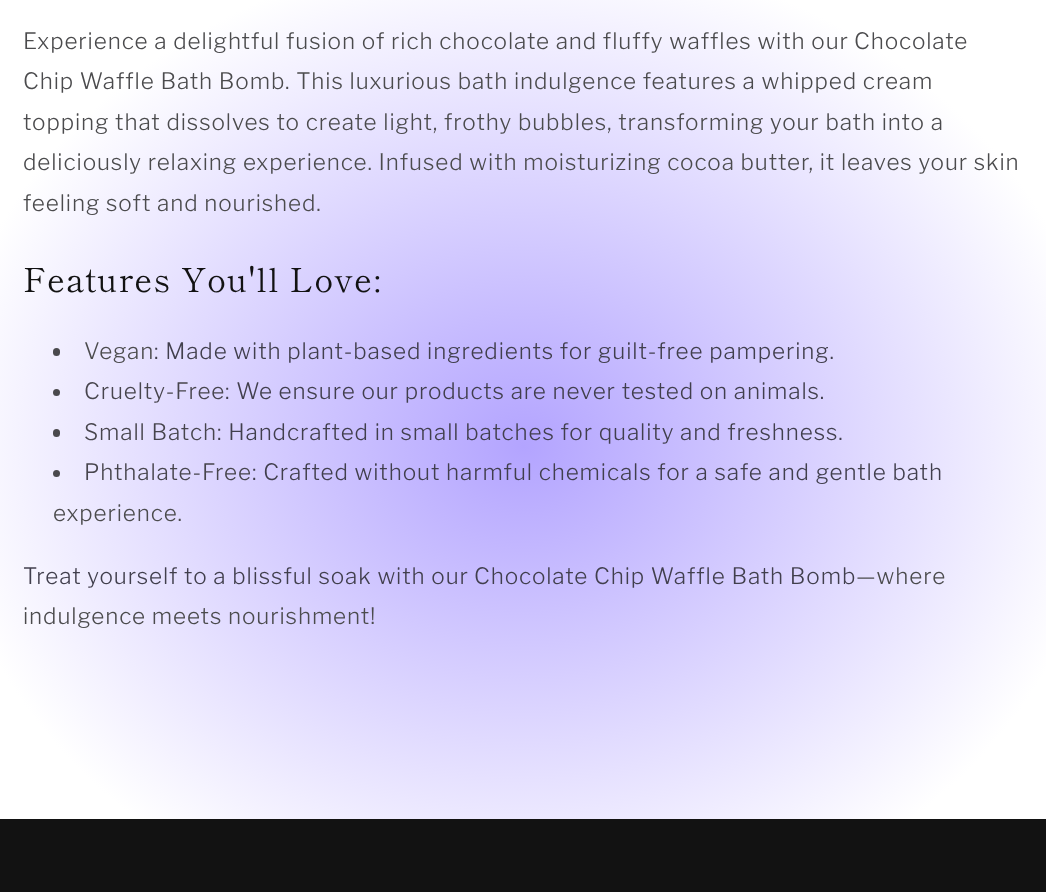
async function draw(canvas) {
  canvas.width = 1046
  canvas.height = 892
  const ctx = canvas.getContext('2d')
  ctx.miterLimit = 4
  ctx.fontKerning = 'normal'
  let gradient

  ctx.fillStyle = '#fff'
  ctx.fillRect(0, 0, 1046, 892)
  gradient = ctx.createRadialGradient(524, 523.04, 0, 524, 523.04, 740)
  gradient.addColorStop(0, '#b3a4ff')
  gradient.addColorStop(0.79, '#fff')
  gradient.addColorStop(0.97, '#fff')
  ctx.fillStyle = gradient
  ctx.beginPath()
  ctx.rect(0, 0, 1046, 819)
  ctx.save()
  ctx.clip()
  ctx.scale(1, 631 / 740)
  ctx.fillRect(0, 0, 1046, 1047)
  ctx.restore()
  ctx.letterSpacing = '0.9px'
  ctx.font = '300 22.5px Libre Franklin'
  ctx.fillStyle = '#4b4b4d'
  ctx.fillText('Experience a delightful fusion of rich chocolate and fluffy waffles with our', 23, 49)
  ctx.fillText('Chocolate', 854, 49)
  ctx.fillText('Chip Waffle Bath Bomb', 23, 89)
  ctx.fillText('. This luxurious bath indulgence features a whipped cream', 285, 89)
  ctx.fillText('topping that dissolves to create light, frothy bubbles, transforming your bath into a', 23, 130)
  ctx.fillText('deliciously relaxing experience. Infused with moisturizing cocoa butter, it leaves your skin', 23, 170)
  ctx.fillText('feeling soft and nourished.', 23, 211)
  ctx.letterSpacing = '1.2px'
  ctx.font = '33.1px Shippori Mincho'
  ctx.fillStyle = '#121212'
  ctx.fillText('Features You\'ll Love:', 23, 292)
  ctx.fillStyle = '#4a494d'
  ctx.beginPath()
  ctx.roundRect(53, 348, 7, 8, 3.5)
  ctx.fill()
  ctx.letterSpacing = '0.9px'
  ctx.font = '300 22.5px Libre Franklin'
  ctx.fillStyle = '#4b4b4d'
  ctx.fillText('Vegan', 84, 359)
  ctx.fillStyle = '#413f4d'
  ctx.fillText(': Made with plant-based ingredients for guilt-free pampering.', 154, 359)
  ctx.fillStyle = '#4a494d'
  ctx.beginPath()
  ctx.arc(56.5, 392.5, 3.5, 0, 2 * Math.PI)
  ctx.fill()
  ctx.fillStyle = '#47454d'
  ctx.fillText('Cruelty-Free', 84, 399)
  ctx.fillStyle = '#413f4d'
  ctx.fillText(': We ensure our products are never tested on animals.', 225, 399)
  ctx.fillStyle = '#4a494d'
  ctx.beginPath()
  ctx.roundRect(53, 429, 7, 8, 3.5)
  ctx.fill()
  ctx.fillStyle = '#47454d'
  ctx.fillText('Small Batch', 84, 440)
  ctx.fillStyle = '#413f4d'
  ctx.fillText(': Handcrafted in small batches for quality and freshness.', 217, 440)
  ctx.fillStyle = '#4a494d'
  ctx.beginPath()
  ctx.arc(56.5, 473.5, 3.5, 0, 2 * Math.PI)
  ctx.fill()
  ctx.fillStyle = '#47454d'
  ctx.fillText('Phthalate-Free', 84, 480)
  ctx.fillStyle = '#413f4d'
  ctx.fillText(': Crafted without harmful chemicals for a safe and gentle bath', 252, 480)
  ctx.fillStyle = '#4b4b4d'
  ctx.fillText('experience.', 53, 521)
  ctx.fillStyle = '#413f4d'
  ctx.fillText('Treat yourself to a blissful soak with our', 23, 584)
  ctx.fillText('Chocolate Chip Waffle Bath Bomb', 474, 584)
  ctx.fillStyle = '#4b4b4d'
  ctx.fillText('—where', 856, 584)
  ctx.fillText('indulgence meets nourishment!', 23, 624)
  ctx.fillStyle = '#121212'
  ctx.fillRect(0, 819, 1046, 73)
}

draw(document.querySelector('canvas'))
